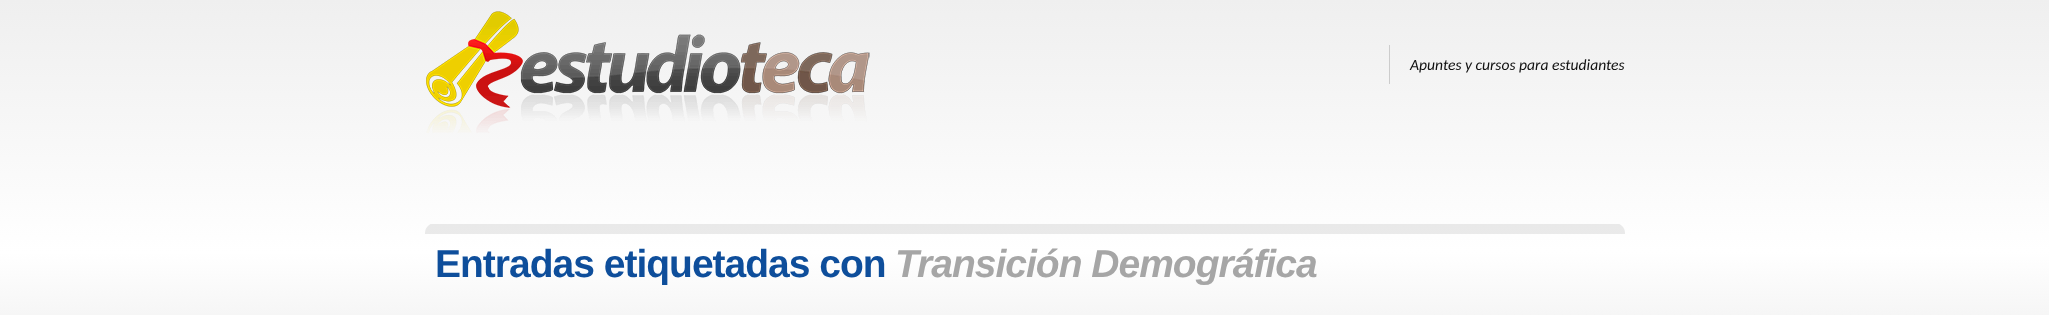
async function draw(canvas) {
  canvas.width = 2049
  canvas.height = 315
  const ctx = canvas.getContext('2d')
  ctx.miterLimit = 4
  ctx.fontKerning = 'normal'
  async function loadImage(src) {
    const img = new Image()
    img.src = src
    await img.decode()
    return img
  }
  let gradient

  ctx.fillStyle = '#fff'
  ctx.fillRect(0, 0, 2049, 315)
  gradient = ctx.createLinearGradient(1024, 0, 1025, 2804)
  gradient.addColorStop(0, '#c6c6c6')
  gradient.addColorStop(0, '#efefef')
  gradient.addColorStop(0.09, '#fff')
  gradient.addColorStop(0.21, '#cecece')
  gradient.addColorStop(1, '#c9c9c9')
  ctx.fillStyle = gradient
  ctx.fillRect(0, 0, 2049, 315)
  ctx.drawImage(await loadImage('image0.png'), 426, 11, 444, 122)
  ctx.fillStyle = '#ccc'
  ctx.fillRect(1389, 45, 1, 39)
  ctx.font = 'italic 15.6px Carlito'
  ctx.fillStyle = '#111'
  ctx.fillText('Apuntes y cursos para estudiantes', 1410, 70)
  ctx.save()
  ctx.beginPath()
  ctx.moveTo(435, 223)
  ctx.lineTo(1615, 223)
  ctx.bezierCurveTo(1620.5, 223, 1625, 227.5, 1625, 233)
  ctx.lineTo(1625, 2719)
  ctx.lineTo(425, 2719)
  ctx.lineTo(425, 233)
  ctx.bezierCurveTo(425, 227.5, 429.5, 223, 435, 223)
  ctx.closePath()
  ctx.clip()
  gradient = ctx.createLinearGradient(1025, 224, 1025, 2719)
  gradient.addColorStop(0, '#e9e9e9')
  gradient.addColorStop(0.14, '#fff')
  ctx.fillStyle = gradient
  ctx.fillRect(425, 224, 1200, 10)
  ctx.restore()
  ctx.letterSpacing = '-1px'
  ctx.font = 'bold 39px Liberation Sans'
  ctx.fillStyle = '#0e4e9b'
  ctx.fillText('Entradas etiquetadas con', 435, 277)
  ctx.font = 'italic bold 39px Liberation Sans'
  ctx.fillStyle = '#a6a6a6'
  ctx.fillText('Transición Demográfica', 895, 277)
}

draw(document.querySelector('canvas'))
